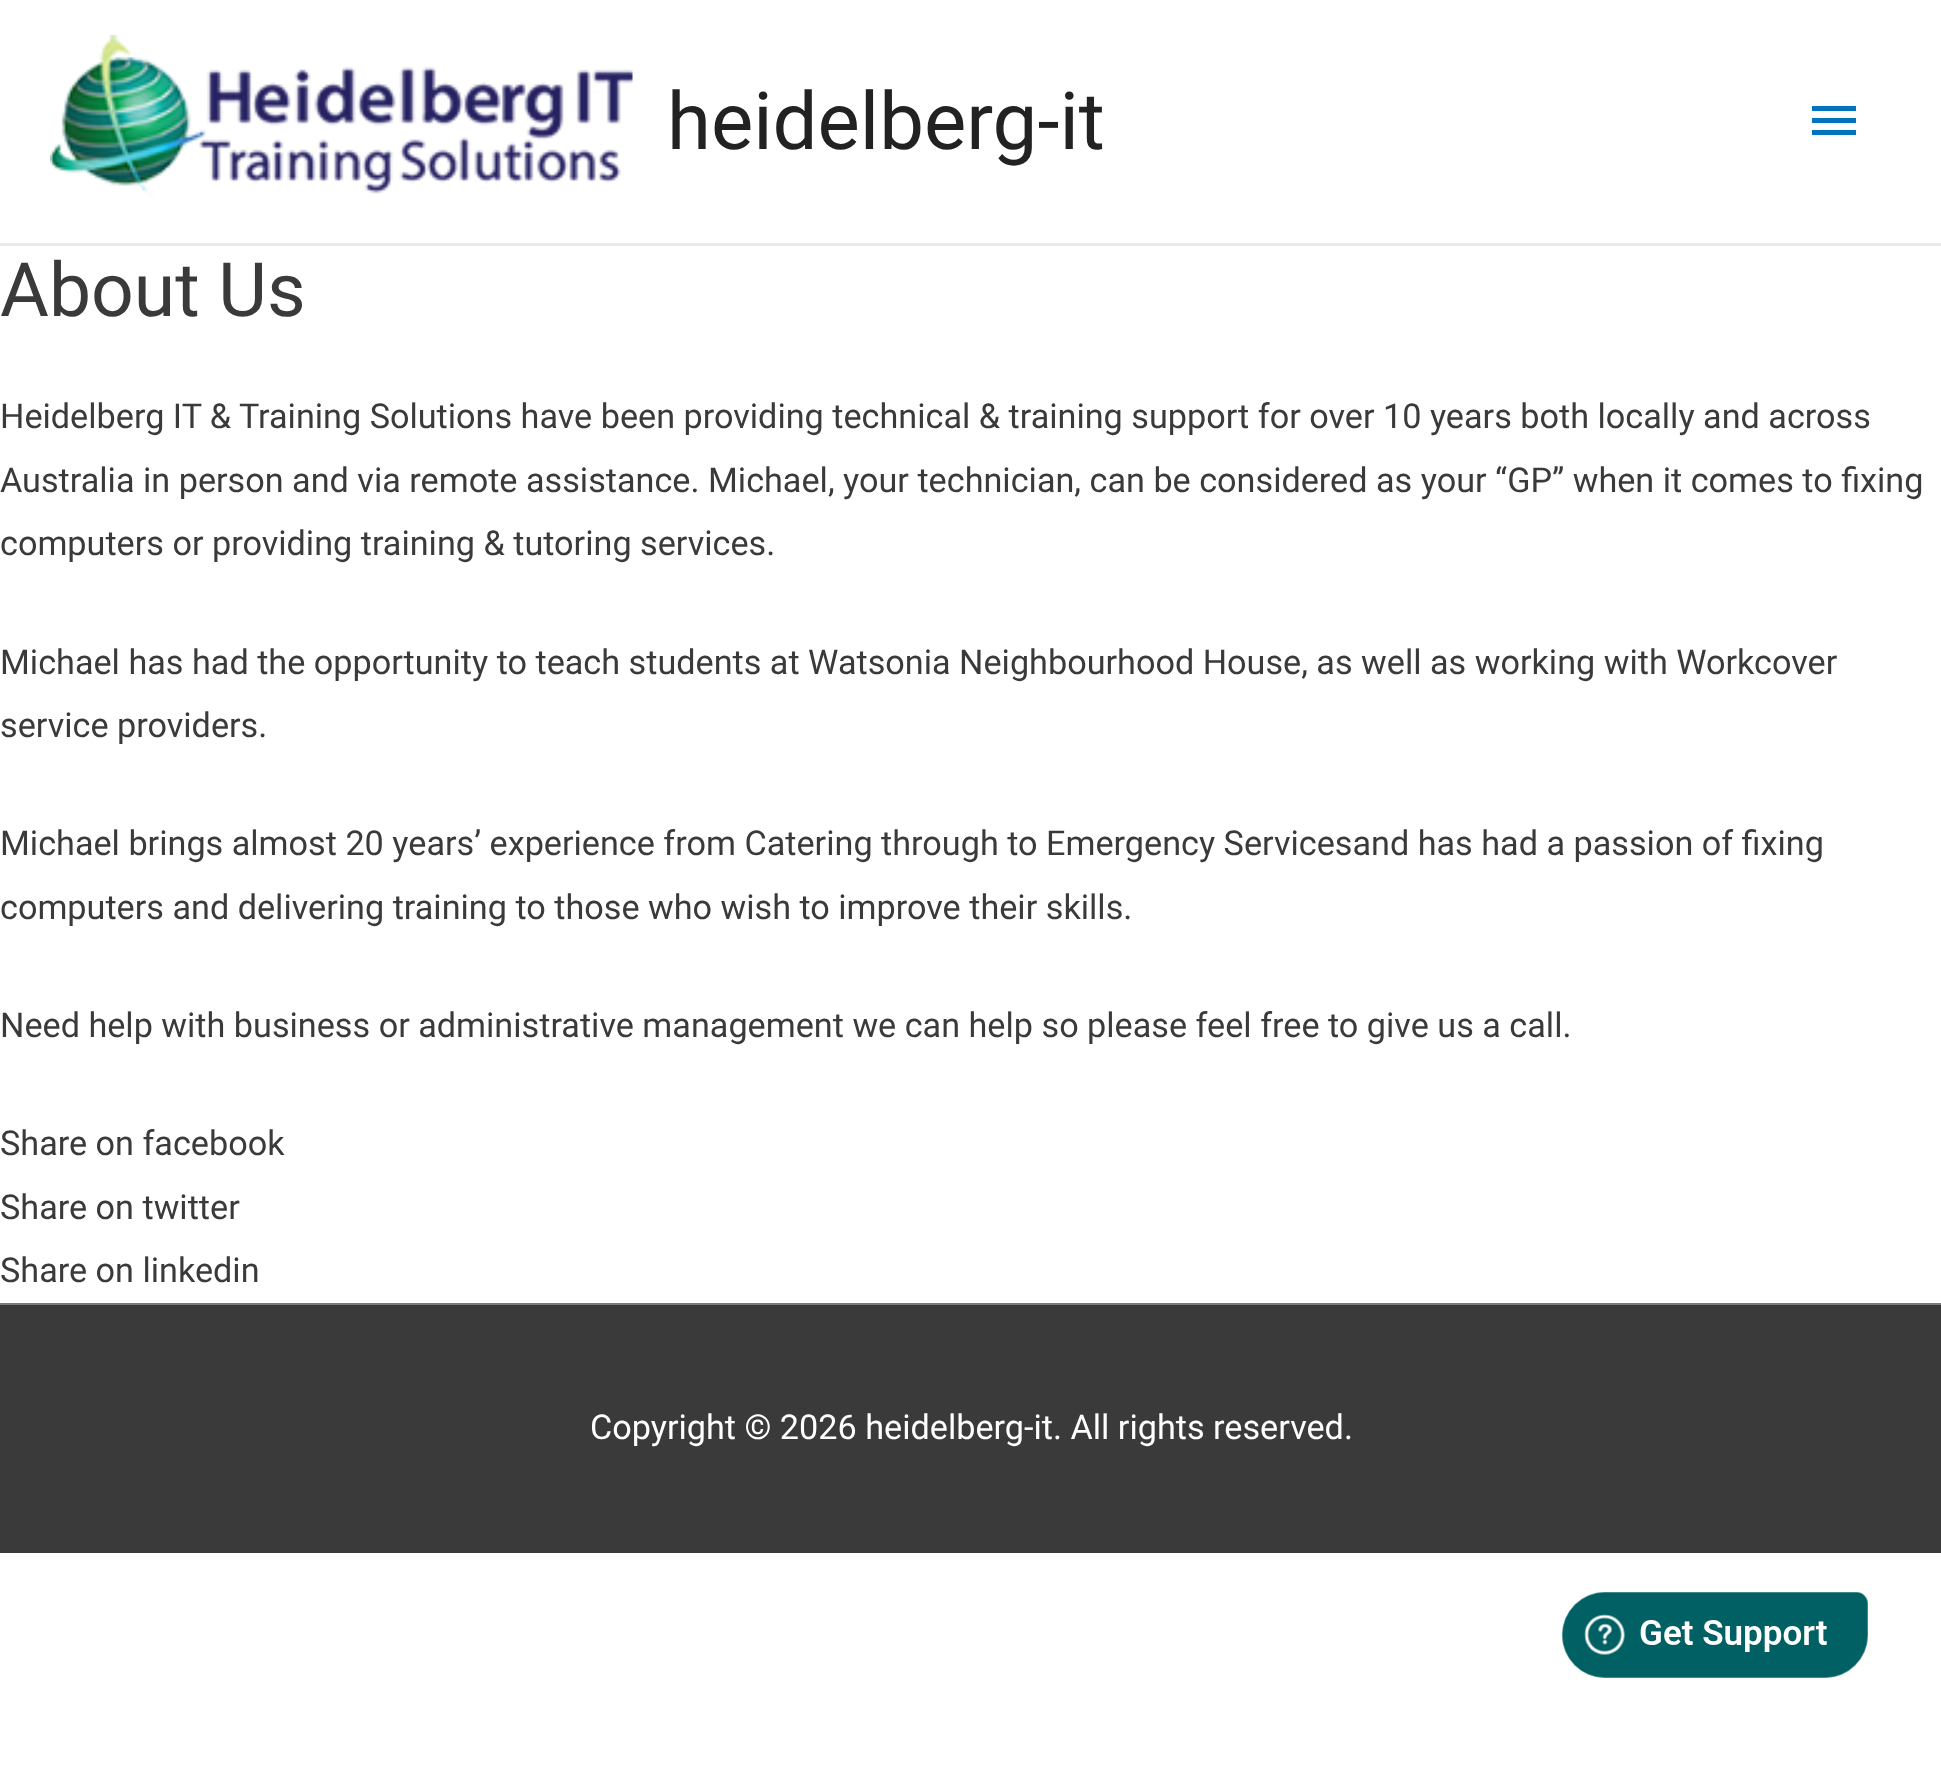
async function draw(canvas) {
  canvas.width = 1941
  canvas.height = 1766
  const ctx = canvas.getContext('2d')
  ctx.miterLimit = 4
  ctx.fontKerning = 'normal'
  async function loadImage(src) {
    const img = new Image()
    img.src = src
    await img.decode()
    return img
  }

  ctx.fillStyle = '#fff'
  ctx.fillRect(0, 0, 1941, 1766)
  ctx.fillStyle = '#eaeaea'
  ctx.fillRect(0, 243, 1941, 3)
  ctx.drawImage(await loadImage('image0.png'), 50, 35, 583, 163)
  ctx.font = '79.75px Roboto'
  ctx.fillStyle = '#222'
  ctx.fillText('heidelberg-it', 667, 149)
  ctx.fillStyle = '#0274be'
  ctx.beginPath()
  ctx.moveTo(1812, 106)
  ctx.lineTo(1856, 106)
  ctx.lineTo(1856, 111)
  ctx.lineTo(1812, 111)
  ctx.closePath()
  ctx.moveTo(1812, 123)
  ctx.lineTo(1812, 118)
  ctx.lineTo(1856, 118)
  ctx.lineTo(1856, 123)
  ctx.closePath()
  ctx.moveTo(1812, 135)
  ctx.lineTo(1812, 130)
  ctx.lineTo(1856, 130)
  ctx.lineTo(1856, 135)
  ctx.closePath()
  ctx.fill()
  ctx.font = '75px Roboto'
  ctx.fillStyle = '#3a3a3a'
  ctx.fillText('About Us', 0, 316)
  ctx.font = '34.2px Roboto'
  ctx.fillText('Heidelberg IT & Training Solutions have been providing technical & training support for over 10 years both locally and across', 0, 428)
  ctx.fillText('Australia in person and via remote assistance. Michael, your technician, can be considered as your “GP” when it comes to fixing', 0, 492)
  ctx.fillText('computers or providing training & tutoring services.', 0, 555)
  ctx.fillText('Michael has had the opportunity to teach students at Watsonia Neighbourhood House, as well as working with Workcover', 0, 674)
  ctx.fillText('service providers.', 0, 737)
  ctx.fillText('Michael brings almost 20 years’ experience from Catering through to Emergency Servicesand has had a passion of fixing', 0, 855)
  ctx.fillText('computers and delivering training to those who wish to improve their skills.', 0, 919)
  ctx.fillText('Need help with business or administrative management we can help so please feel free to give us a call.', 0, 1037)
  ctx.fillText('Share on facebook', 0, 1155)
  ctx.fillText('Share on twitter', 0, 1219)
  ctx.fillText('Share on linkedin', 0, 1282)
  ctx.fillStyle = '#7a7a7a'
  ctx.fillRect(0, 1303, 1941, 2)
  ctx.fillStyle = '#3a3a3a'
  ctx.fillRect(0, 1305, 1941, 248)
  ctx.fillStyle = '#fff'
  ctx.fillText('Copyright © 2026 heidelberg-it. All rights reserved.', 590, 1439)
  ctx.drawImage(await loadImage('image1.png'), 1562, 1592, 306, 86)
  ctx.drawImage(await loadImage('image2.png'), 1562, 1592, 306, 86)
}

draw(document.querySelector('canvas'))
